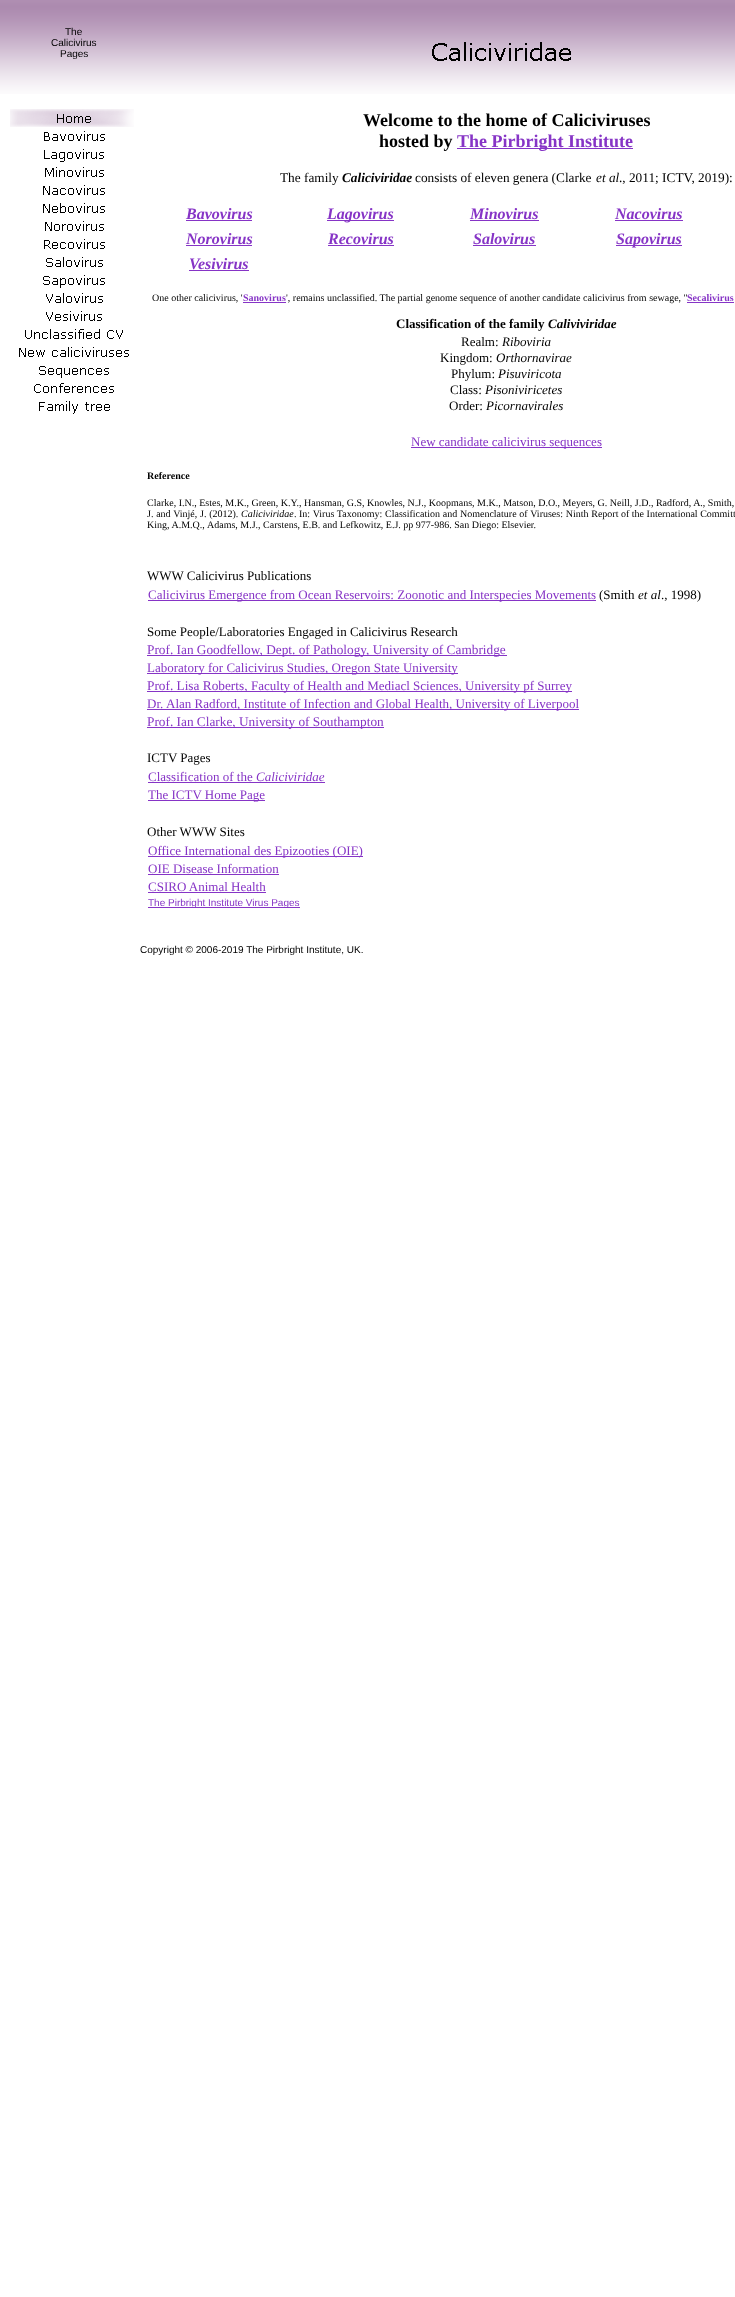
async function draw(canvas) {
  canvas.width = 735
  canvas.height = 2297
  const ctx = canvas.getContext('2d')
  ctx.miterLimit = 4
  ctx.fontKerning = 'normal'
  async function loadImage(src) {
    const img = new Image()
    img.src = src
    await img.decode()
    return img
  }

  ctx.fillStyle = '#fff'
  ctx.fillRect(0, 0, 735, 2297)
  ctx.drawImage(await loadImage('image0.png'), 0, 0, 735, 94)
  ctx.font = '10px Liberation Sans'
  ctx.fillStyle = '#000'
  ctx.fillText('The', 65, 35)
  ctx.fillText('Calicivirus', 51, 46)
  ctx.fillText('Pages', 60, 57)
  ctx.drawImage(await loadImage('image1.png'), 432, 42, 139, 19)
  ctx.drawImage(await loadImage('image2.png'), 10, 109, 124, 18)
  ctx.drawImage(await loadImage('image3.png'), 44, 131, 61, 10)
  ctx.drawImage(await loadImage('image4.png'), 44, 149, 60, 13)
  ctx.drawImage(await loadImage('image5.png'), 45, 167, 59, 10)
  ctx.drawImage(await loadImage('image6.png'), 43, 185, 62, 10)
  ctx.drawImage(await loadImage('image7.png'), 43, 203, 62, 10)
  ctx.drawImage(await loadImage('image8.png'), 45, 221, 59, 10)
  ctx.drawImage(await loadImage('image9.png'), 44, 239, 61, 10)
  ctx.drawImage(await loadImage('image10.png'), 46, 257, 57, 10)
  ctx.drawImage(await loadImage('image11.png'), 43, 275, 62, 13)
  ctx.drawImage(await loadImage('image12.png'), 46, 293, 57, 10)
  ctx.drawImage(await loadImage('image13.png'), 46, 311, 56, 10)
  ctx.drawImage(await loadImage('image14.png'), 25, 329, 98, 10)
  ctx.drawImage(await loadImage('image15.png'), 19, 347, 110, 10)
  ctx.drawImage(await loadImage('image16.png'), 39, 366, 70, 12)
  ctx.drawImage(await loadImage('image17.png'), 34, 383, 80, 10)
  ctx.drawImage(await loadImage('image18.png'), 39, 401, 71, 13)
  ctx.font = 'bold 18px Liberation Serif'
  ctx.fillText('Welcome to the home of Caliciviruses', 363, 126)
  ctx.fillText('hosted by', 379, 147)
  ctx.fillStyle = '#8634c6'
  ctx.fillRect(457, 148, 176, 1)
  ctx.fillText('The Pirbright Institute', 457, 147)
  ctx.font = '13.3px Liberation Serif'
  ctx.fillStyle = '#000'
  ctx.fillText('The family', 280, 182)
  ctx.font = 'italic bold 13.3px Liberation Serif'
  ctx.fillText('Caliciviridae', 342, 182)
  ctx.font = '13.3px Liberation Serif'
  ctx.fillText('consists of eleven genera (Clarke', 415, 182)
  ctx.font = 'italic 13.3px Liberation Serif'
  ctx.fillText('et al', 596, 182)
  ctx.font = '13.3px Liberation Serif'
  ctx.fillText('., 2011; ICTV, 2019):', 619, 182)
  ctx.font = 'italic bold 16px Liberation Serif'
  ctx.fillStyle = '#8634c6'
  ctx.fillText('Bavovirus', 186, 219)
  ctx.fillRect(186, 220, 66, 1)
  ctx.fillRect(327, 220, 67, 1)
  ctx.fillText('Lagovirus', 327, 219)
  ctx.fillText('Minovirus', 470, 219)
  ctx.fillRect(470, 220, 69, 1)
  ctx.fillText('Nacovirus', 615, 219)
  ctx.fillRect(615, 220, 68, 1)
  ctx.fillText('Norovirus', 186, 244)
  ctx.fillRect(186, 245, 66, 1)
  ctx.fillText('Recovirus', 328, 244)
  ctx.fillRect(328, 245, 66, 1)
  ctx.fillText('Salovirus', 473, 244)
  ctx.fillRect(473, 245, 63, 1)
  ctx.fillRect(616, 245, 66, 1)
  ctx.fillText('Sapovirus', 616, 244)
  ctx.fillText('Vesivirus', 189, 269)
  ctx.fillRect(189, 270, 60, 1)
  ctx.font = '10px Liberation Serif'
  ctx.fillStyle = '#000'
  ctx.fillText('One other calicivirus, \'', 152, 301)
  ctx.font = 'bold 10px Liberation Serif'
  ctx.fillStyle = '#8634c6'
  ctx.fillText('Sanovirus', 243, 301)
  ctx.fillRect(243, 302, 43, 1)
  ctx.font = '10px Liberation Serif'
  ctx.fillStyle = '#000'
  ctx.fillText('\', remains unclassified. The partial genome sequence of another candidate calicivirus from sewage, "', 286, 301)
  ctx.fillStyle = '#8634c6'
  ctx.fillRect(687, 302, 47, 1)
  ctx.font = 'bold 10px Liberation Serif'
  ctx.fillText('Secalivirus', 687, 301)
  ctx.font = 'bold 13px Liberation Serif'
  ctx.fillStyle = '#000'
  ctx.fillText('Classification of the family', 396, 328)
  ctx.font = 'italic bold 13px Liberation Serif'
  ctx.fillText('Caliviviridae', 548, 328)
  ctx.font = '13px Liberation Serif'
  ctx.fillText('Realm:', 461, 346)
  ctx.font = 'italic 13px Liberation Serif'
  ctx.fillText('Riboviria', 502, 346)
  ctx.font = '13px Liberation Serif'
  ctx.fillText('Kingdom:', 440, 362)
  ctx.font = 'italic 13px Liberation Serif'
  ctx.fillText('Orthornavirae', 496, 362)
  ctx.font = '13px Liberation Serif'
  ctx.fillText('Phylum:', 451, 378)
  ctx.font = 'italic 13px Liberation Serif'
  ctx.fillText('Pisuviricota', 498, 378)
  ctx.font = '13px Liberation Serif'
  ctx.fillText('Class:', 450, 394)
  ctx.font = 'italic 13px Liberation Serif'
  ctx.fillText('Pisoniviricetes', 485, 394)
  ctx.font = '13px Liberation Serif'
  ctx.fillText('Order:', 449, 410)
  ctx.font = 'italic 13px Liberation Serif'
  ctx.fillText('Picornavirales', 486, 410)
  ctx.fillStyle = '#8634c6'
  ctx.fillRect(411, 447, 191, 1)
  ctx.font = '13px Liberation Serif'
  ctx.fillText('New candidate calicivirus sequences', 411, 446)
  ctx.font = 'bold 10px Liberation Serif'
  ctx.fillStyle = '#000'
  ctx.fillText('Reference', 147, 479)
  ctx.font = '10px Liberation Serif'
  ctx.fillText('Clarke, I.N., Estes, M.K., Green, K.Y., Hansman, G.S, Knowles, N.J., Koopmans, M.K., Matson, D.O., Meyers, G. Neill, J.D., Radford, A., Smith,', 147, 506)
  ctx.wordSpacing = '0.25px'
  ctx.fillText('J. and Vinjé, J. (2012).', 147, 517)
  ctx.wordSpacing = '0px'
  ctx.font = 'italic 10px Liberation Serif'
  ctx.fillText('Caliciviridae', 241, 517)
  ctx.font = '10px Liberation Serif'
  ctx.fillText('.', 294, 517)
  ctx.wordSpacing = '0.25px'
  ctx.fillText('In: Virus Taxonomy: Classification and Nomenclature of Viruses: Ninth Report', 299, 517)
  ctx.wordSpacing = '0px'
  ctx.fillText('of the International Committ', 621, 517)
  ctx.fillText('King, A.M.Q.,', 147, 528)
  ctx.fillText('Adams, M.J., Carstens, E.B. and Lefkowitz, E.J. pp 977-986. San Diego: Elsevier.', 207, 528)
  ctx.font = '13px Liberation Serif'
  ctx.fillText('WWW Calicivirus Publications', 147, 580)
  ctx.fillStyle = '#8634c6'
  ctx.fillRect(148, 600, 448, 1)
  ctx.fillText('Calicivirus Emergence from Ocean Reservoirs: Zoonotic and Interspecies Movements', 148, 599)
  ctx.fillStyle = '#000'
  ctx.fillText('(Smith', 599, 599)
  ctx.font = 'italic 13px Liberation Serif'
  ctx.fillText('et al', 638, 599)
  ctx.font = '13px Liberation Serif'
  ctx.fillText('., 1998)', 661, 599)
  ctx.fillText('Some People/Laboratories Engaged in Calicivirus Research', 147, 636)
  ctx.fillStyle = '#8634c6'
  ctx.fillRect(147, 655, 360, 1)
  ctx.font = '13.3px Liberation Serif'
  ctx.fillText('Prof. Ian Goodfellow, Dept. of Pathology, University of Cambridge', 147, 654)
  ctx.fillRect(147, 673, 311, 1)
  ctx.font = '13px Liberation Serif'
  ctx.fillText('Laboratory for Calicivirus Studies, Oregon State University', 147, 672)
  ctx.fillRect(147, 691, 425, 1)
  ctx.font = '13.3px Liberation Serif'
  ctx.fillText('Prof. Lisa Roberts,', 147, 690)
  ctx.font = '13px Liberation Serif'
  ctx.fillText('Faculty of Health and Mediacl Sciences, University pf Surrey', 251, 690)
  ctx.fillText('Dr.', 147, 708)
  ctx.fillRect(147, 709, 432, 1)
  ctx.fillText('Alan Radford, Institute of Infection and Global Health, University of Liverpool', 166, 708)
  ctx.fillRect(147, 727, 237, 1)
  ctx.font = '13.3px Liberation Serif'
  ctx.fillText('Prof. Ian Clarke, University of Southampton', 147, 726)
  ctx.font = '13px Liberation Serif'
  ctx.fillStyle = '#000'
  ctx.fillText('ICTV Pages', 147, 762)
  ctx.fillStyle = '#8634c6'
  ctx.fillText('Classification of the', 148, 781)
  ctx.font = 'italic 13px Liberation Serif'
  ctx.fillText('Caliciviridae', 256, 781)
  ctx.fillRect(148, 782, 177, 1)
  ctx.fillRect(148, 800, 117, 1)
  ctx.font = '13px Liberation Serif'
  ctx.fillText('The ICTV Home Page', 148, 799)
  ctx.fillStyle = '#000'
  ctx.fillText('Other WWW Sites', 147, 836)
  ctx.fillStyle = '#8634c6'
  ctx.fillRect(148, 856, 215, 1)
  ctx.fillText('Office International des Epizooties (OIE)', 148, 855)
  ctx.fillText('OIE Disease Information', 148, 873)
  ctx.fillRect(148, 874, 131, 1)
  ctx.fillText('CSIRO Animal Health', 148, 891)
  ctx.fillRect(148, 892, 118, 1)
  ctx.fillRect(148, 907, 152, 1)
  ctx.font = '10px Liberation Sans'
  ctx.fillText('The Pirbright Institute Virus Pages', 148, 906)
  ctx.fillStyle = '#000'
  ctx.fillText('Copyright © 2006-2019 The Pirbright Institute, UK.', 140, 953)
}

draw(document.querySelector('canvas'))
